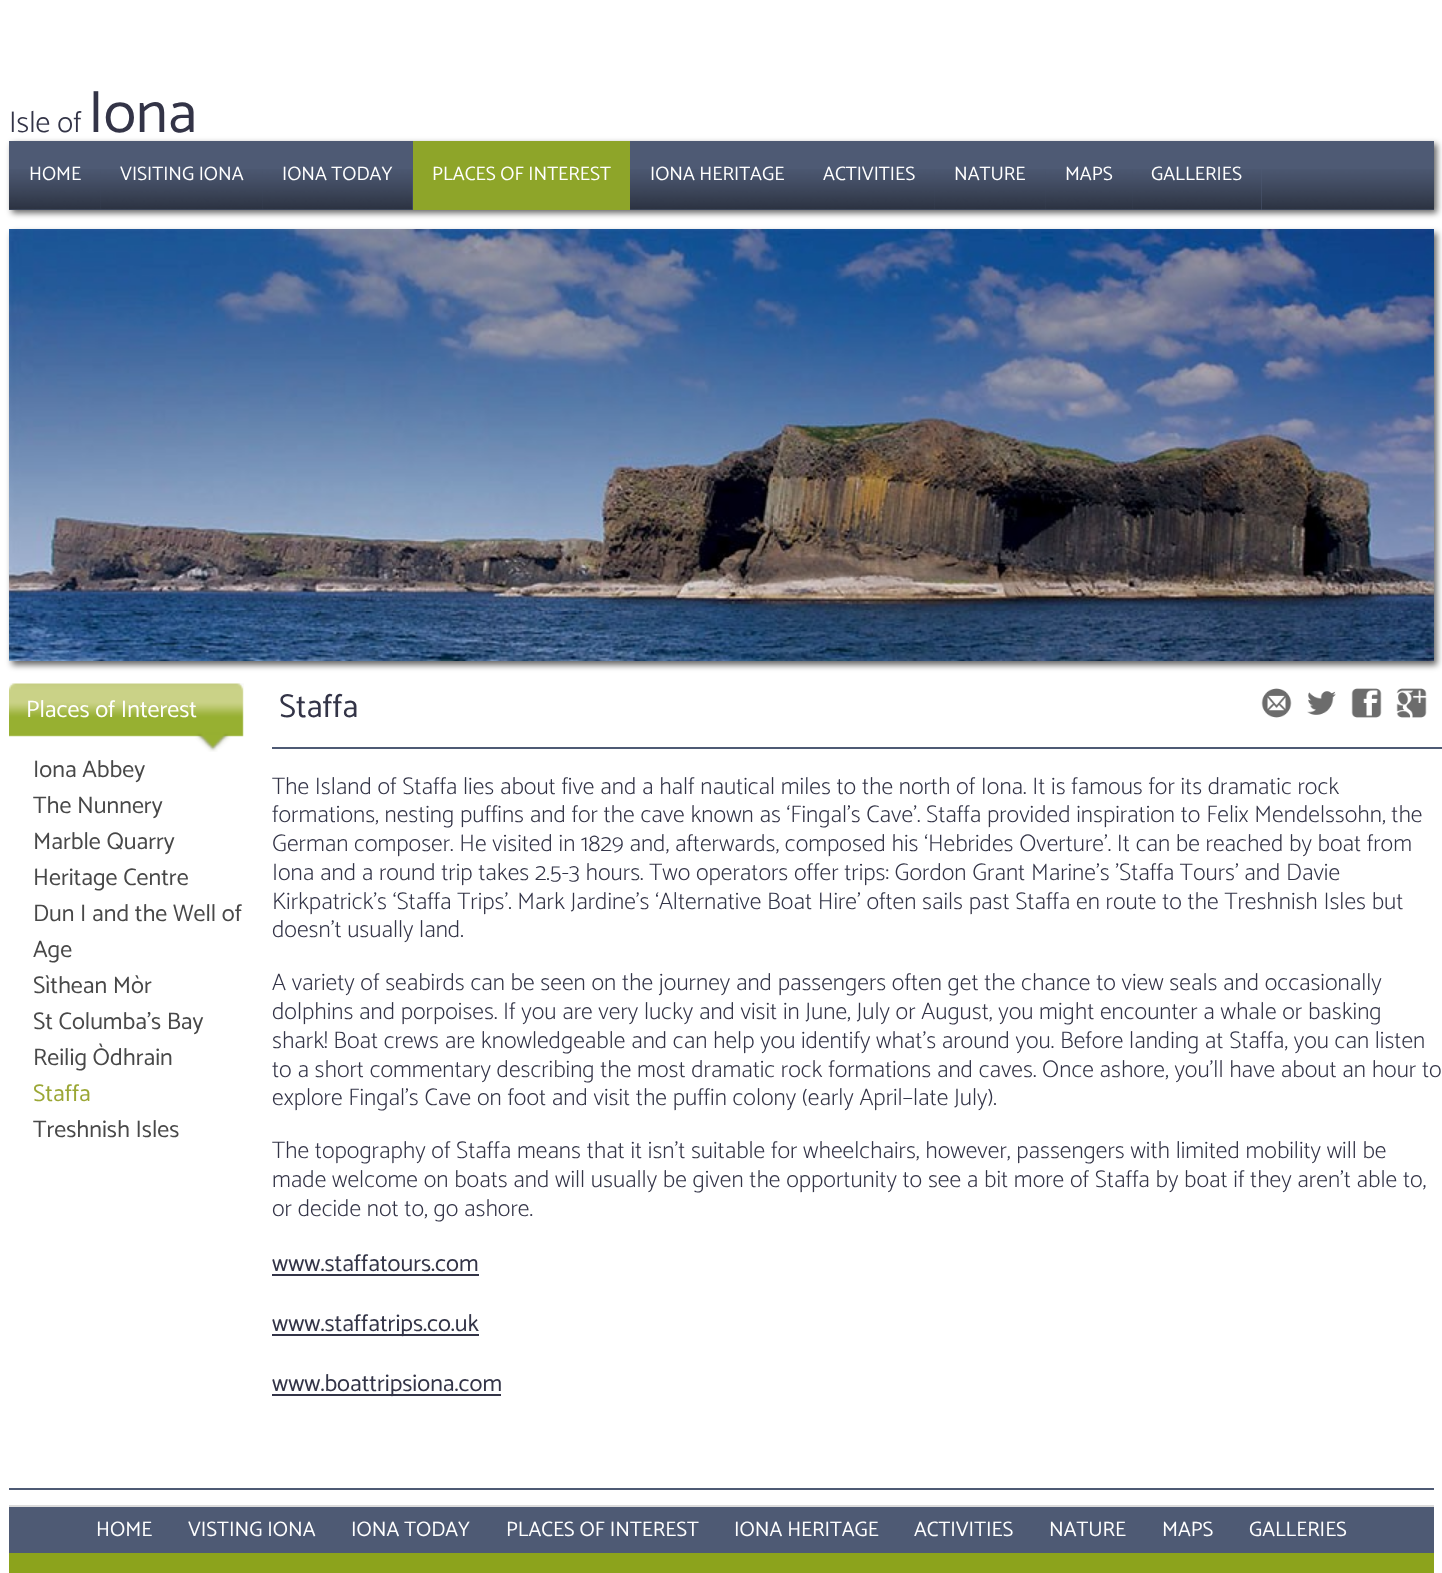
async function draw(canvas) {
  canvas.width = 1442
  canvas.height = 1573
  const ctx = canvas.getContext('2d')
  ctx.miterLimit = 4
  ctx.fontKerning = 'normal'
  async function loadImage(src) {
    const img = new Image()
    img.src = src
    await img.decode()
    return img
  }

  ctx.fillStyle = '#fff'
  ctx.fillRect(0, 0, 1442, 1573)
  ctx.font = '300 30px Catamaran'
  ctx.fillStyle = '#333447'
  ctx.fillText('Isle of', 9, 132)
  ctx.font = '60px Catamaran'
  ctx.fillText('Iona', 88, 132)
  ctx.fillStyle = '#00000099'
  ctx.filter = 'blur(3px)'
  ctx.beginPath()
  ctx.rect(12, 144, 1425, 69)
  ctx.fill()
  ctx.filter = 'none'
  ctx.fillStyle = '#4e5a74'
  ctx.fillRect(1262, 141, 172, 69)
  ctx.drawImage(await loadImage('image0.png'), 1262, 169, 172, 41)
  ctx.fillRect(9, 141, 404, 69)
  ctx.drawImage(await loadImage('image1.png'), 9, 169, 92, 41)
  ctx.font = '19.5px Catamaran'
  ctx.fillStyle = '#fff'
  ctx.fillText('HOME', 29, 180)
  ctx.drawImage(await loadImage('image2.png'), 100, 169, 163, 41)
  ctx.fillText('VISITING IONA', 120, 180)
  ctx.drawImage(await loadImage('image3.png'), 262, 169, 151, 41)
  ctx.fillText('IONA TODAY', 282, 180)
  ctx.fillStyle = '#8ea529'
  ctx.fillRect(413, 141, 217, 69)
  ctx.fillStyle = '#fff'
  ctx.fillText('PLACES OF INTEREST', 432, 180)
  ctx.fillStyle = '#4e5a74'
  ctx.fillRect(630, 141, 632, 69)
  ctx.drawImage(await loadImage('image4.png'), 630, 169, 174, 41)
  ctx.fillStyle = '#fff'
  ctx.fillText('IONA HERITAGE', 650, 180)
  ctx.drawImage(await loadImage('image5.png'), 804, 169, 131, 41)
  ctx.fillText('ACTIVITIES', 823, 180)
  ctx.drawImage(await loadImage('image6.png'), 934, 169, 112, 41)
  ctx.fillText('NATURE', 954, 180)
  ctx.drawImage(await loadImage('image7.png'), 1045, 169, 88, 41)
  ctx.fillText('MAPS', 1065, 180)
  ctx.drawImage(await loadImage('image8.png'), 1132, 169, 130, 41)
  ctx.fillText('GALLERIES', 1151, 180)
  ctx.fillStyle = '#00000099'
  ctx.filter = 'blur(3px)'
  ctx.beginPath()
  ctx.rect(12, 233, 1425, 432)
  ctx.fill()
  ctx.filter = 'none'
  ctx.drawImage(await loadImage('image9.png'), 9, 229, 1425, 432)
  ctx.drawImage(await loadImage('image10.png'), 9, 683, 235, 69)
  ctx.font = '24px Catamaran'
  ctx.fillStyle = '#fff'
  ctx.fillText('Places of Interest', 26, 717)
  ctx.fillStyle = '#484848'
  ctx.fillText('Iona Abbey', 33, 777)
  ctx.fillText('The Nunnery', 33, 813)
  ctx.fillText('Marble Quarry', 33, 849)
  ctx.fillText('Heritage Centre', 33, 885)
  ctx.fillText('Dun I and the Well of', 33, 921)
  ctx.fillText('Age', 33, 957)
  ctx.fillText('Sìthean Mòr', 33, 993)
  ctx.fillText('St Columba\'s Bay', 33, 1029)
  ctx.fillText('Reilig Òdhrain', 33, 1065)
  ctx.fillStyle = '#9ba735'
  ctx.fillText('Staffa', 33, 1101)
  ctx.fillStyle = '#484848'
  ctx.fillText('Treshnish Isles', 33, 1137)
  ctx.fillStyle = '#4e5a74'
  ctx.fillRect(272, 747, 1170, 2)
  ctx.font = '33px Catamaran'
  ctx.fillStyle = '#333447'
  ctx.fillText('Staffa', 279, 717)
  ctx.drawImage(await loadImage('image11.png'), 1261, 688, 31, 30)
  ctx.drawImage(await loadImage('image12.png'), 1307, 691, 29, 24)
  ctx.drawImage(await loadImage('image13.png'), 1351, 688, 31, 30)
  ctx.drawImage(await loadImage('image14.png'), 1396, 688, 31, 30)
  ctx.font = '200 24px Catamaran'
  ctx.fillText('The Island of Staffa lies about five and a half nautical miles to the north of Iona. It is famous for its dramatic rock', 272, 794)
  ctx.fillText('formations, nesting puffins and for the cave known as ‘Fingal’s Cave’. Staffa provided inspiration to Felix Mendelssohn, the', 272, 822)
  ctx.fillText('German composer. He visited in 1829 and, afterwards, composed his ‘Hebrides Overture’. It can be reached by boat from', 272, 851)
  ctx.fillText('Iona and a round trip takes 2.5-3 hours. Two operators offer trips: Gordon Grant Marine\'s \'Staffa Tours\' and Davie', 272, 880)
  ctx.fillText('Kirkpatrick’s ‘Staffa Trips’. Mark Jardine’s ‘Alternative Boat Hire’ often sails past Staffa en route to the Treshnish Isles but', 272, 909)
  ctx.fillText('doesn’t usually land.', 272, 937)
  ctx.fillText('A variety of seabirds can be seen on the journey and passengers often get the chance to view seals and occasionally', 272, 990)
  ctx.fillText('dolphins and porpoises. If you are very lucky and visit in June, July or August, you might encounter a whale or basking', 272, 1019)
  ctx.fillText('shark! Boat crews are knowledgeable and can help you identify what’s around you. Before landing at Staffa, you can listen', 272, 1048)
  ctx.fillText('to a short commentary describing the most dramatic rock formations and caves. Once ashore, you’ll have about an hour to', 272, 1077)
  ctx.fillText('explore Fingal’s Cave on foot and visit the puffin colony (early April–late July).', 272, 1105)
  ctx.fillText('The topography of Staffa means that it isn’t suitable for wheelchairs, however, passengers with limited mobility will be', 272, 1158)
  ctx.fillText('made welcome on boats and will usually be given the opportunity to see a bit more of Staffa by boat if they aren’t able to,', 272, 1187)
  ctx.fillText('or decide not to, go ashore.', 272, 1216)
  ctx.font = '24px Catamaran'
  ctx.fillText('www.staffatours.com', 272, 1271)
  ctx.fillRect(272, 1274, 207, 2)
  ctx.fillRect(272, 1334, 207, 2)
  ctx.fillText('www.staffatrips.co.uk', 272, 1331)
  ctx.fillRect(272, 1394, 229, 2)
  ctx.fillText('www.boattripsiona.com', 272, 1391)
  ctx.fillStyle = '#4e5a74'
  ctx.fillRect(9, 1488, 1425, 2)
  ctx.fillRect(9, 1507, 1425, 46)
  ctx.fillStyle = '#dcdcdc'
  ctx.fillRect(9, 1505, 1425, 2)
  ctx.font = '21px Catamaran'
  ctx.fillStyle = '#fff'
  ctx.fillText('HOME', 96, 1536)
  ctx.fillText('VISTING IONA', 188, 1536)
  ctx.fillText('IONA TODAY', 351, 1536)
  ctx.fillText('PLACES OF INTEREST', 506, 1536)
  ctx.fillText('IONA HERITAGE', 734, 1536)
  ctx.fillText('ACTIVITIES', 914, 1536)
  ctx.fillText('NATURE', 1049, 1536)
  ctx.fillText('MAPS', 1162, 1536)
  ctx.fillText('GALLERIES', 1249, 1536)
  ctx.fillStyle = '#8ca31c'
  ctx.fillRect(9, 1553, 1425, 20)
}

draw(document.querySelector('canvas'))
